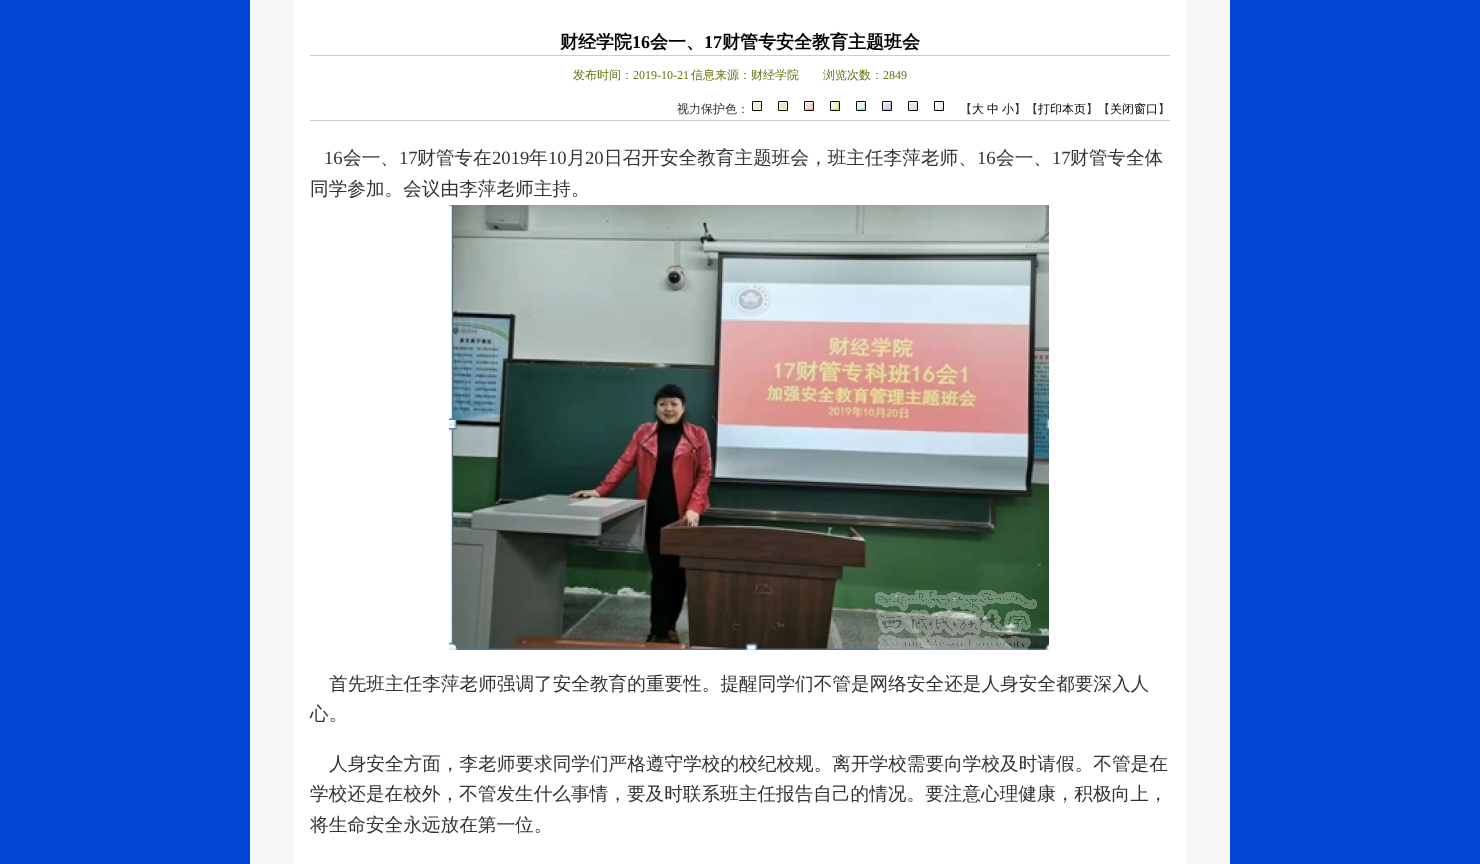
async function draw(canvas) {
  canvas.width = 1480
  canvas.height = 864
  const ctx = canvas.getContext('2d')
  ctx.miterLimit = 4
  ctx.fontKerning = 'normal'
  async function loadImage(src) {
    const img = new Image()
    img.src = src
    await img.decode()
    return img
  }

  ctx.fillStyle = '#0146d5'
  ctx.fillRect(0, 0, 1480, 864)
  ctx.fillStyle = '#f7f7f7'
  ctx.fillRect(250, 0, 980, 864)
  ctx.fillStyle = '#fff'
  ctx.fillRect(294, 0, 892, 864)
  ctx.fillStyle = '#ccc'
  ctx.fillRect(310, 55, 860, 1)
  ctx.font = 'bold 18px WenQuanYi Zen Hei'
  ctx.fillStyle = '#000'
  ctx.fillText('财经学院', 560, 48)
  ctx.font = 'bold 18px Liberation Serif'
  ctx.fillText('16', 632, 48)
  ctx.font = 'bold 18px WenQuanYi Zen Hei'
  ctx.fillText('会一、', 650, 48)
  ctx.font = 'bold 18px Liberation Serif'
  ctx.fillText('17', 704, 48)
  ctx.font = 'bold 18px WenQuanYi Zen Hei'
  ctx.fillText('财管专安全教育主题班会', 722, 48)
  ctx.font = '500 12px WenQuanYi Zen Hei'
  ctx.fillStyle = '#697210'
  ctx.fillText('发布时间：', 573, 79)
  ctx.font = '12px Liberation Serif'
  ctx.fillText('2019-10-21', 633, 79)
  ctx.font = '500 12px WenQuanYi Zen Hei'
  ctx.fillText('信息来源：财经学院　　浏览次数：', 691, 79)
  ctx.font = '12px Liberation Serif'
  ctx.fillText('2849', 883, 79)
  ctx.fillStyle = '#ccc'
  ctx.fillRect(310, 120, 860, 1)
  ctx.font = '500 12px WenQuanYi Zen Hei'
  ctx.fillStyle = '#333'
  ctx.fillText('视力保护色：', 677, 113)
  ctx.drawImage(await loadImage('image0.png'), 752, 101, 10, 10)
  ctx.drawImage(await loadImage('image1.png'), 778, 101, 10, 10)
  ctx.drawImage(await loadImage('image2.png'), 804, 101, 10, 10)
  ctx.drawImage(await loadImage('image3.png'), 830, 101, 10, 10)
  ctx.drawImage(await loadImage('image4.png'), 856, 101, 10, 10)
  ctx.drawImage(await loadImage('image5.png'), 882, 101, 10, 10)
  ctx.drawImage(await loadImage('image6.png'), 908, 101, 10, 10)
  ctx.drawImage(await loadImage('image7.png'), 934, 101, 10, 10)
  ctx.fillText('【', 960, 113)
  ctx.fillStyle = '#000'
  ctx.fillText('大', 972, 113)
  ctx.fillText('中', 987, 113)
  ctx.fillText('小', 1002, 113)
  ctx.fillStyle = '#333'
  ctx.fillText('】【', 1014, 113)
  ctx.fillStyle = '#000'
  ctx.fillText('打印本页', 1038, 113)
  ctx.fillStyle = '#333'
  ctx.fillText('】【', 1086, 113)
  ctx.fillStyle = '#000'
  ctx.fillText('关闭窗口', 1110, 113)
  ctx.fillStyle = '#333'
  ctx.fillText('】', 1158, 113)
  ctx.font = '500 18.65px WenQuanYi Zen Hei'
  ctx.fillText('日召开安全教育主题班会，班主任李萍老师、', 604, 164)
  ctx.fillText('财管专全体', 1070, 164)
  ctx.fillText('同学参加。会议由李萍老师主持。', 310, 195)
  ctx.drawImage(await loadImage('image8.png'), 449, 205, 600, 445)
  ctx.font = '18.65px Liberation Serif'
  ctx.fillText('16', 324, 164)
  ctx.font = '500 18.65px WenQuanYi Zen Hei'
  ctx.fillText('会一、', 343, 164)
  ctx.font = '18.65px Liberation Serif'
  ctx.fillText('17', 399, 164)
  ctx.font = '500 18.65px WenQuanYi Zen Hei'
  ctx.fillText('财管专在', 417, 164)
  ctx.font = '18.65px Liberation Serif'
  ctx.fillText('2019', 492, 164)
  ctx.font = '500 18.65px WenQuanYi Zen Hei'
  ctx.fillText('年', 529, 164)
  ctx.font = '18.65px Liberation Serif'
  ctx.fillText('10', 548, 164)
  ctx.font = '500 18.65px WenQuanYi Zen Hei'
  ctx.fillText('月', 567, 164)
  ctx.font = '18.65px Liberation Serif'
  ctx.fillText('20', 585, 164)
  ctx.fillText('16', 977, 164)
  ctx.font = '500 18.65px WenQuanYi Zen Hei'
  ctx.fillText('会一、', 996, 164)
  ctx.font = '18.65px Liberation Serif'
  ctx.fillText('17', 1052, 164)
  ctx.font = '500 18.65px WenQuanYi Zen Hei'
  ctx.fillText('首先班主任李萍老师强调了安全教育的重要性。提醒同学们不管是网络安全还是人身安全都要深入人', 329, 690)
  ctx.fillText('心。', 310, 720)
  ctx.fillText('人身安全方面，李老师要求同学们严格遵守学校的校纪校规。离开学校需要向学校及时请假。不管是在', 329, 770)
  ctx.fillText('学校还是在校外，不管发生什么事情，要及时联系班主任报告自己的情况。要注意心理健康，积极向上，', 310, 800)
  ctx.fillText('将生命安全永远放在第一位。', 310, 831)
}

draw(document.querySelector('canvas'))
